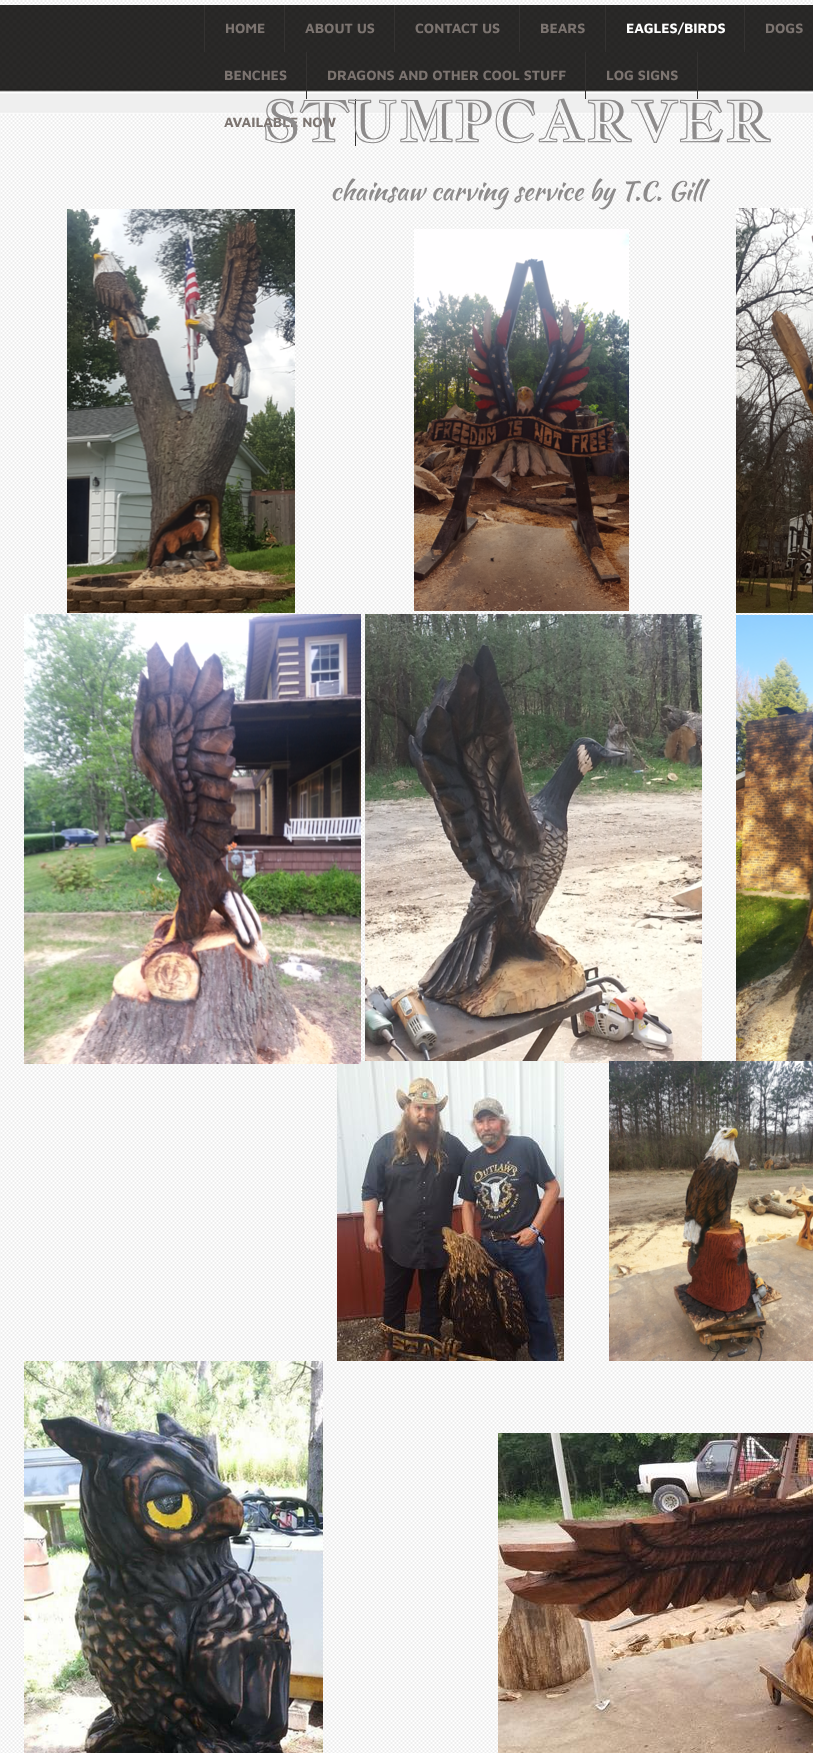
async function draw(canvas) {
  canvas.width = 813
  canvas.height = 1753
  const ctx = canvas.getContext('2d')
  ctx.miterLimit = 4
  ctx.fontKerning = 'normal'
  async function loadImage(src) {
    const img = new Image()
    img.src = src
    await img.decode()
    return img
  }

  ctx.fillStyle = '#fff'
  ctx.fillRect(0, 0, 813, 1753)
  ctx.drawImage(await loadImage('image0.png'), 0, 0, 813, 1753)
  ctx.drawImage(await loadImage('image1.png'), 0, 5, 813, 109)
  ctx.fillStyle = '#343231'
  ctx.fillRect(284, 5, 1, 47)
  ctx.fillRect(204, 5, 1, 47)
  ctx.font = 'bold 14px Maven Pro'
  ctx.fillStyle = '#7c7470'
  ctx.fillText('HOME', 225, 33)
  ctx.fillStyle = '#343231'
  ctx.fillRect(394, 5, 1, 47)
  ctx.fillStyle = '#7c7470'
  ctx.fillText('ABOUT US', 305, 33)
  ctx.fillStyle = '#343231'
  ctx.fillRect(519, 5, 1, 47)
  ctx.fillStyle = '#7c7470'
  ctx.fillText('CONTACT US', 415, 33)
  ctx.fillStyle = '#343231'
  ctx.fillRect(605, 5, 1, 47)
  ctx.fillStyle = '#7c7470'
  ctx.fillText('BEARS', 540, 33)
  ctx.fillStyle = '#343231'
  ctx.fillRect(744, 5, 1, 47)
  ctx.fillStyle = '#fff'
  ctx.fillText('EAGLES/BIRDS', 626, 33)
  ctx.fillStyle = '#7c7470'
  ctx.fillText('DOGS', 765, 33)
  ctx.fillStyle = '#343231'
  ctx.fillRect(306, 52, 1, 47)
  ctx.fillStyle = '#7c7470'
  ctx.fillText('BENCHES', 224, 80)
  ctx.fillStyle = '#343231'
  ctx.fillRect(585, 52, 1, 47)
  ctx.fillStyle = '#7c7470'
  ctx.fillText('DRAGONS AND OTHER COOL STUFF', 327, 80)
  ctx.fillStyle = '#343231'
  ctx.fillRect(697, 52, 1, 47)
  ctx.fillStyle = '#7c7470'
  ctx.fillText('LOG SIGNS', 606, 80)
  ctx.fillStyle = '#343231'
  ctx.fillRect(355, 99, 1, 47)
  ctx.fillStyle = '#7c7470'
  ctx.fillText('AVAILABLE NOW', 224, 127)
  ctx.font = '56px Jacques Francois Shadow'
  ctx.fillStyle = '#8d8b8b'
  ctx.fillText('STUMPCARVER', 262, 141)
  ctx.font = '26px Kaushan Script'
  ctx.fillText('chainsaw carving service by T.C. Gill', 330, 200)
  ctx.drawImage(await loadImage('image2.png'), 67, 209, 228, 404)
  ctx.drawImage(await loadImage('image3.png'), 414, 229, 215, 382)
  ctx.drawImage(await loadImage('image4.png'), 736, 208, 77, 405)
  ctx.drawImage(await loadImage('image6.png'), 365, 614, 337, 449)
  ctx.drawImage(await loadImage('image8.png'), 337, 1061, 227, 300)
  ctx.drawImage(await loadImage('image5.png'), 24, 614, 337, 450)
  ctx.drawImage(await loadImage('image7.png'), 736, 615, 77, 446)
  ctx.drawImage(await loadImage('image9.png'), 609, 1061, 204, 300)
  ctx.drawImage(await loadImage('image10.png'), 24, 1361, 299, 392)
  ctx.drawImage(await loadImage('image11.png'), 498, 1433, 315, 320)
}

draw(document.querySelector('canvas'))
